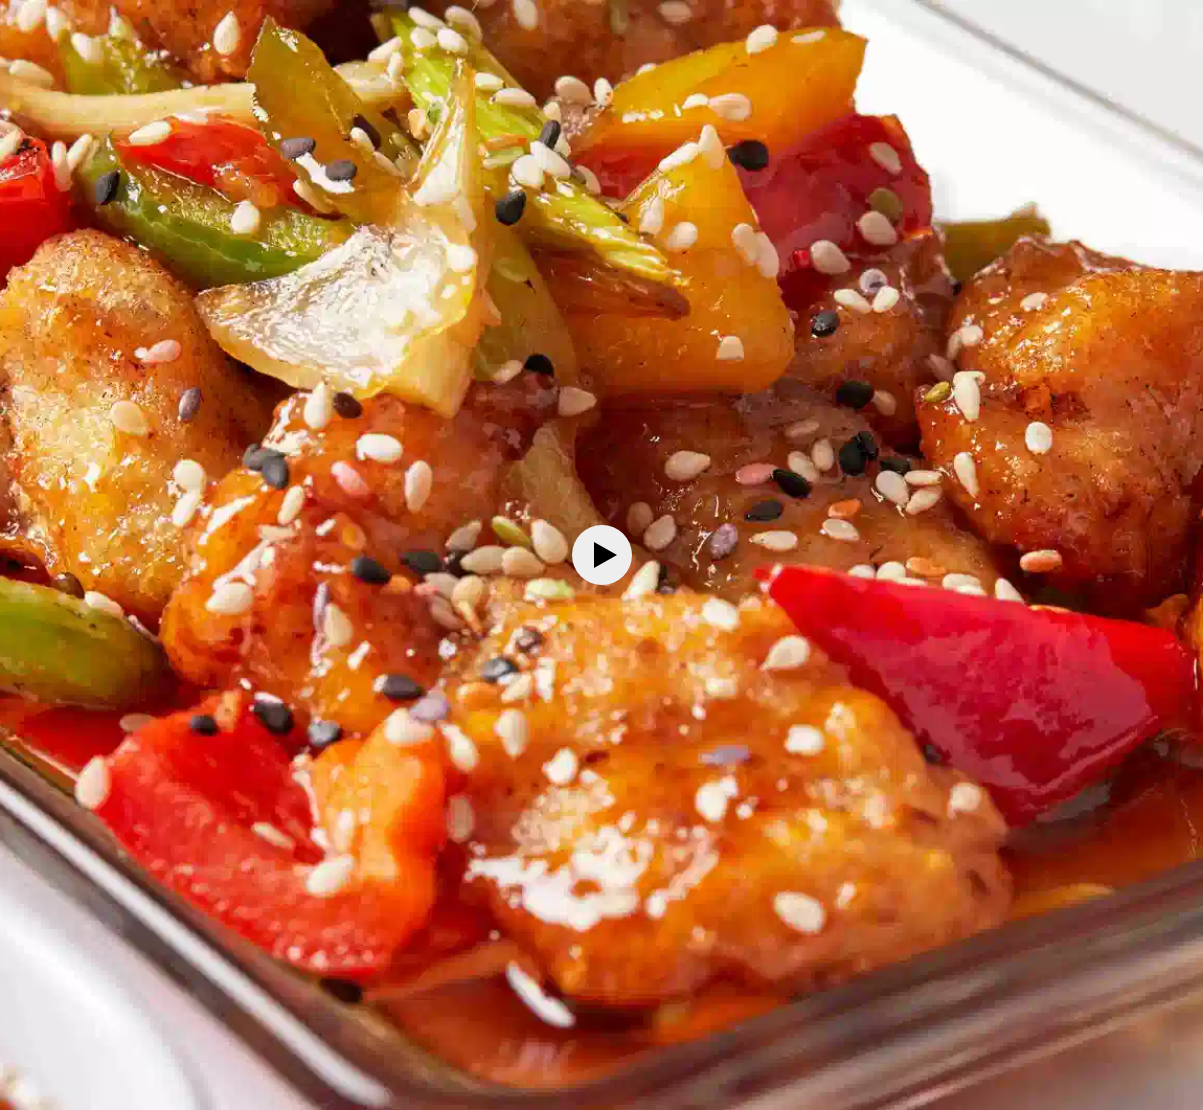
async function draw(canvas) {
  canvas.width = 1203
  canvas.height = 1110
  const ctx = canvas.getContext('2d')
  ctx.miterLimit = 4
  ctx.fontKerning = 'normal'
  async function loadImage(src) {
    const img = new Image()
    img.src = src
    await img.decode()
    return img
  }

  ctx.fillStyle = '#fff'
  ctx.fillRect(0, 0, 1203, 1110)
  ctx.drawImage(await loadImage('image0.png'), 0, 0, 1203, 1110)
  ctx.fillStyle = '#eee'
  ctx.beginPath()
  ctx.arc(602, 555, 30, 0, 2 * Math.PI)
  ctx.fill()
  ctx.fillStyle = '#000'
  ctx.beginPath()
  ctx.moveTo(617, 555)
  ctx.lineTo(594, 542)
  ctx.lineTo(594, 568)
  ctx.closePath()
  ctx.fill()
}

draw(document.querySelector('canvas'))
